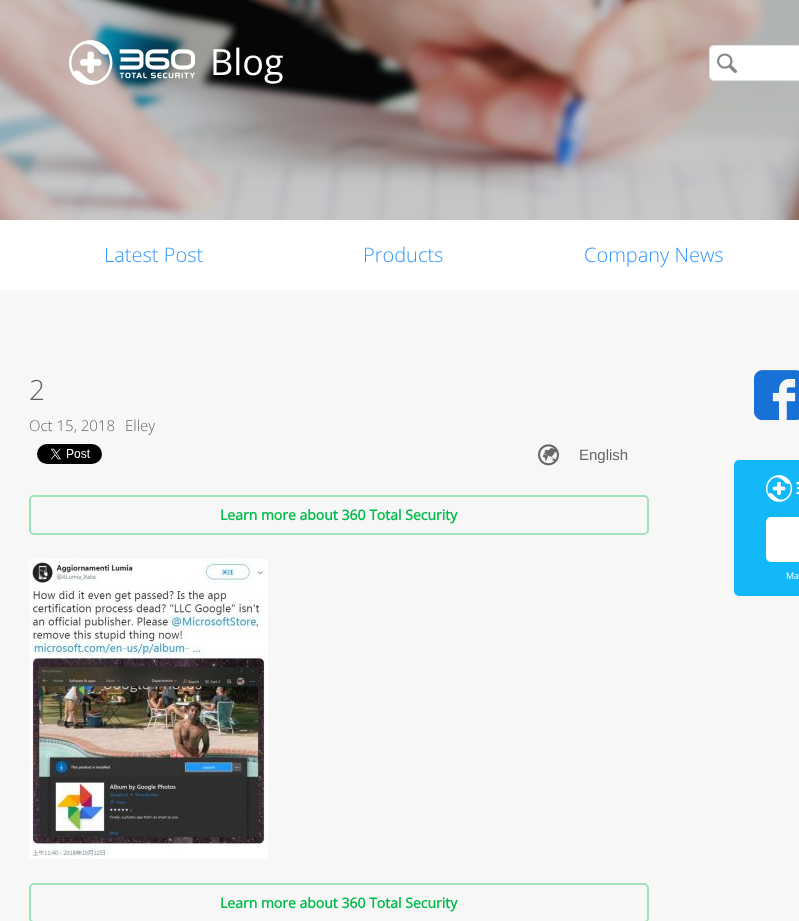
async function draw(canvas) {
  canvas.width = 799
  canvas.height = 921
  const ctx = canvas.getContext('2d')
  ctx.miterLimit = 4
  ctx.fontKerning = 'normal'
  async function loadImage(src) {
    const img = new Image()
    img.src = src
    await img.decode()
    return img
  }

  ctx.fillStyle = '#f7f7f7'
  ctx.fillRect(0, 0, 799, 921)
  ctx.drawImage(await loadImage('image0.png'), 0, 0, 799, 220)
  ctx.drawImage(await loadImage('image1.png'), 69, 40, 126, 45)
  ctx.font = '36px Open Sans'
  ctx.fillStyle = '#fff'
  ctx.fillText('Blog', 210, 75)
  ctx.beginPath()
  ctx.roundRect(710, 46, 35, 34, [4, 0, 0, 4])
  ctx.fill()
  ctx.fillStyle = '#e0e0e0'
  ctx.beginPath()
  ctx.moveTo(714, 45)
  ctx.lineTo(745, 45)
  ctx.lineTo(745, 81)
  ctx.lineTo(714, 81)
  ctx.bezierCurveTo(711, 81, 709, 79, 709, 76)
  ctx.lineTo(709, 50)
  ctx.bezierCurveTo(709, 47, 711, 45, 714, 45)
  ctx.closePath()
  ctx.moveTo(714, 46)
  ctx.lineTo(745, 46)
  ctx.lineTo(745, 80)
  ctx.lineTo(714, 80)
  ctx.bezierCurveTo(712, 80, 710, 78, 710, 76)
  ctx.lineTo(710, 50)
  ctx.bezierCurveTo(710, 48, 712, 46, 714, 46)
  ctx.closePath()
  ctx.fill('evenodd')
  ctx.drawImage(await loadImage('image2.png'), 717, 53, 20, 20)
  ctx.fillStyle = '#fff'
  ctx.fillRect(745, 46, 54, 34)
  ctx.fillStyle = '#e0e0e0'
  ctx.beginPath()
  ctx.moveTo(745, 45)
  ctx.lineTo(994, 45)
  ctx.bezierCurveTo(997, 45, 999, 47, 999, 50)
  ctx.lineTo(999, 76)
  ctx.bezierCurveTo(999, 79, 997, 81, 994, 81)
  ctx.lineTo(745, 81)
  ctx.closePath()
  ctx.moveTo(745, 46)
  ctx.lineTo(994, 46)
  ctx.bezierCurveTo(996, 46, 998, 48, 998, 50)
  ctx.lineTo(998, 76)
  ctx.bezierCurveTo(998, 78, 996, 80, 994, 80)
  ctx.lineTo(745, 80)
  ctx.closePath()
  ctx.fill('evenodd')
  ctx.fillStyle = '#fff'
  ctx.fillRect(0, 220, 799, 70)
  ctx.font = '300 20px Open Sans'
  ctx.fillStyle = '#3197ff'
  ctx.fillText('Latest Post', 104, 262)
  ctx.fillText('Products', 363, 262)
  ctx.fillText('Company News', 584, 262)
  ctx.font = '300 28px Open Sans'
  ctx.fillStyle = '#5f5f5f'
  ctx.fillText('2', 29, 400)
  ctx.font = '300 15px Open Sans'
  ctx.fillStyle = '#666'
  ctx.fillText('Oct 15, 2018', 29, 431)
  ctx.fillText('Elley', 125, 431)
  ctx.drawImage(await loadImage('image3.png'), 37, 444, 65, 20)
  ctx.drawImage(await loadImage('image4.png'), 538, 444, 21, 22)
  ctx.font = '15px Liberation Sans'
  ctx.fillText('English', 579, 460)
  ctx.beginPath()
  ctx.roundRect(30, 496, 618, 38, 4)
  ctx.strokeStyle = '#a1e2bb'
  ctx.lineWidth = 2
  ctx.stroke()
  ctx.font = 'bold 14px Open Sans'
  ctx.fillStyle = '#00bc4b'
  ctx.fillText('Learn more about 360 Total Security', 220, 520)
  ctx.drawImage(await loadImage('image5.png'), 29, 559, 239, 300)
  ctx.beginPath()
  ctx.roundRect(30, 884, 618, 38, 4)
  ctx.stroke()
  ctx.fillText('Learn more about 360 Total Security', 220, 908)
  ctx.drawImage(await loadImage('image6.png'), 754, 370, 45, 50)
  ctx.fillStyle = '#13b8f9'
  ctx.beginPath()
  ctx.roundRect(734, 460, 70, 136, 5)
  ctx.fill()
  ctx.drawImage(await loadImage('image7.png'), 766, 475, 33, 27)
  ctx.fillStyle = '#fff'
  ctx.beginPath()
  ctx.roundRect(766, 517, 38, 45, 5)
  ctx.fill()
  ctx.font = '9px Open Sans'
  ctx.fillText('Ma', 786, 579)
}

draw(document.querySelector('canvas'))
